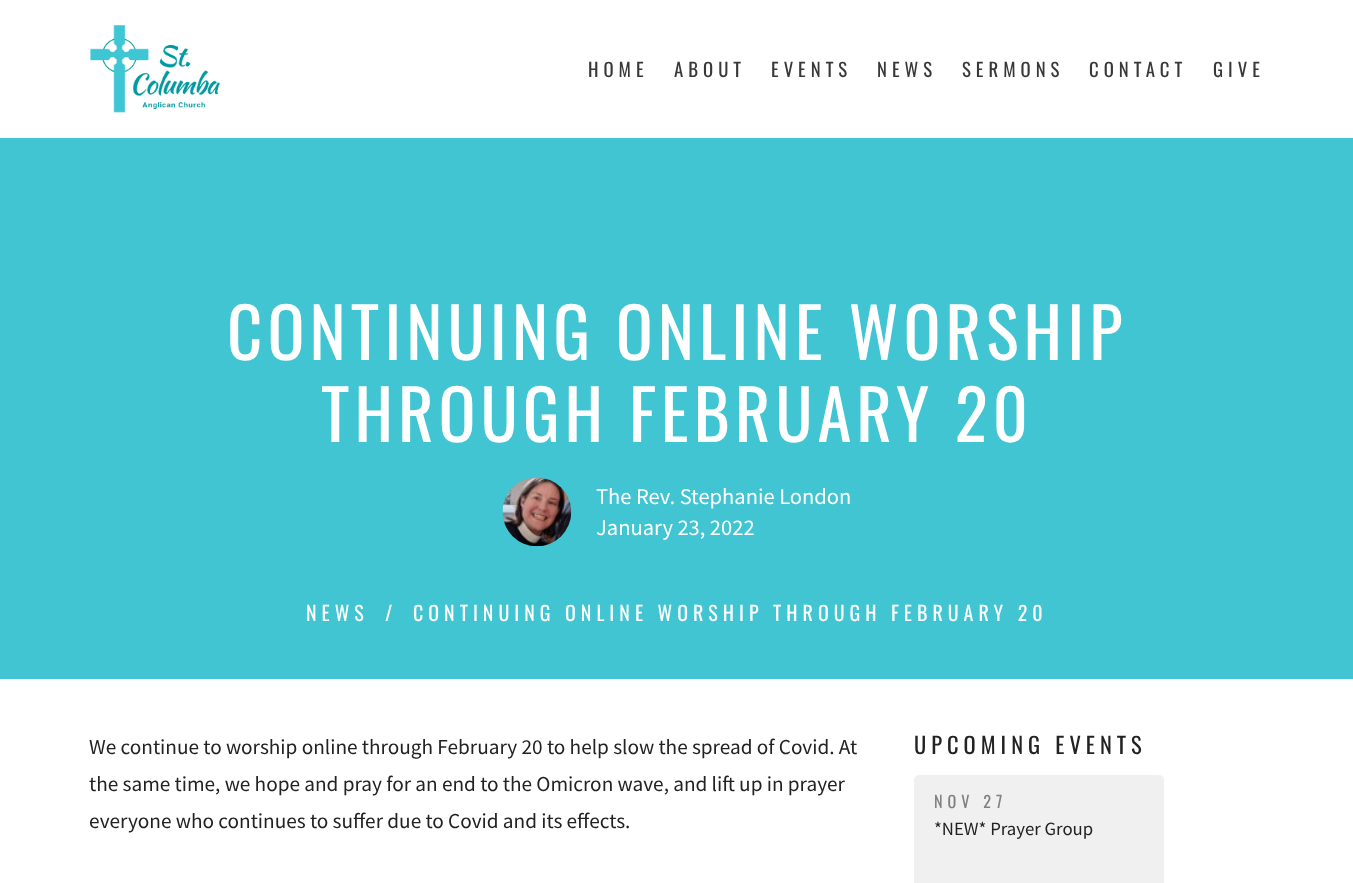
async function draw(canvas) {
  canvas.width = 1353
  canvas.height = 883
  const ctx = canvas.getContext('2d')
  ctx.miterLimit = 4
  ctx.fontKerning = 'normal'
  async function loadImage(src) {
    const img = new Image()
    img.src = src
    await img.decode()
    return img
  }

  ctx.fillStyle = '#fff'
  ctx.fillRect(0, 0, 1353, 883)
  ctx.drawImage(await loadImage('image0.png'), 90, 25, 130, 88)
  ctx.letterSpacing = '5px'
  ctx.font = '18.75px Oswald'
  ctx.fillStyle = '#383838'
  ctx.fillText('HOME', 588, 77)
  ctx.fillText('ABOUT', 674, 77)
  ctx.fillText('EVENTS', 771, 77)
  ctx.fillText('NEWS', 877, 77)
  ctx.fillText('SERMONS', 962, 77)
  ctx.fillText('CONTACT', 1089, 77)
  ctx.fillText('GIVE', 1213, 77)
  ctx.fillStyle = '#41c5d3'
  ctx.fillRect(0, 138, 1353, 541)
  ctx.font = '68.75px Oswald'
  ctx.fillStyle = '#fff'
  ctx.fillText('CONTINUING ONLINE WORSHIP', 227, 360)
  ctx.fillText('THROUGH FEBRUARY 20', 321, 442)
  ctx.drawImage(await loadImage('image1.png'), 502, 477, 70, 70)
  ctx.letterSpacing = '0px'
  ctx.font = '22.5px Source Sans Pro'
  ctx.fillText('The Rev. Stephanie London', 596, 504)
  ctx.fillText('January 23, 2022', 596, 535)
  ctx.letterSpacing = '5px'
  ctx.font = '20px Oswald'
  ctx.fillText('NEWS', 306, 621)
  ctx.fillText('/', 385, 621)
  ctx.fillText('CONTINUING ONLINE WORSHIP THROUGH FEBRUARY 20', 413, 621)
  ctx.letterSpacing = '0px'
  ctx.font = '21.25px Source Sans Pro'
  ctx.fillStyle = '#222'
  ctx.fillText('We continue to worship online through February 20 to help slow the spread of Covid. At', 89, 754)
  ctx.fillText('the same time, we hope and pray for an end to the Omicron wave, and lift up in prayer', 89, 791)
  ctx.fillText('everyone who continues to suffer due to Covid and its effects.', 89, 828)
  ctx.letterSpacing = '5px'
  ctx.font = '22.5px Oswald'
  ctx.fillText('UPCOMING EVENTS', 914, 754)
  ctx.fillStyle = '#f0f0f0'
  ctx.beginPath()
  ctx.roundRect(914, 775, 250, 81, [5, 5, 0, 0])
  ctx.fill()
  ctx.font = '16.25px Oswald'
  ctx.fillStyle = '#808080'
  ctx.fillText('NOV 27', 934, 808)
  ctx.letterSpacing = '0px'
  ctx.font = '18.75px Source Sans Pro'
  ctx.fillStyle = '#222'
  ctx.fillText('*NEW* Prayer Group', 934, 835)
  ctx.fillStyle = '#f0f0f0'
  ctx.fillRect(914, 856, 250, 27)
}

draw(document.querySelector('canvas'))
